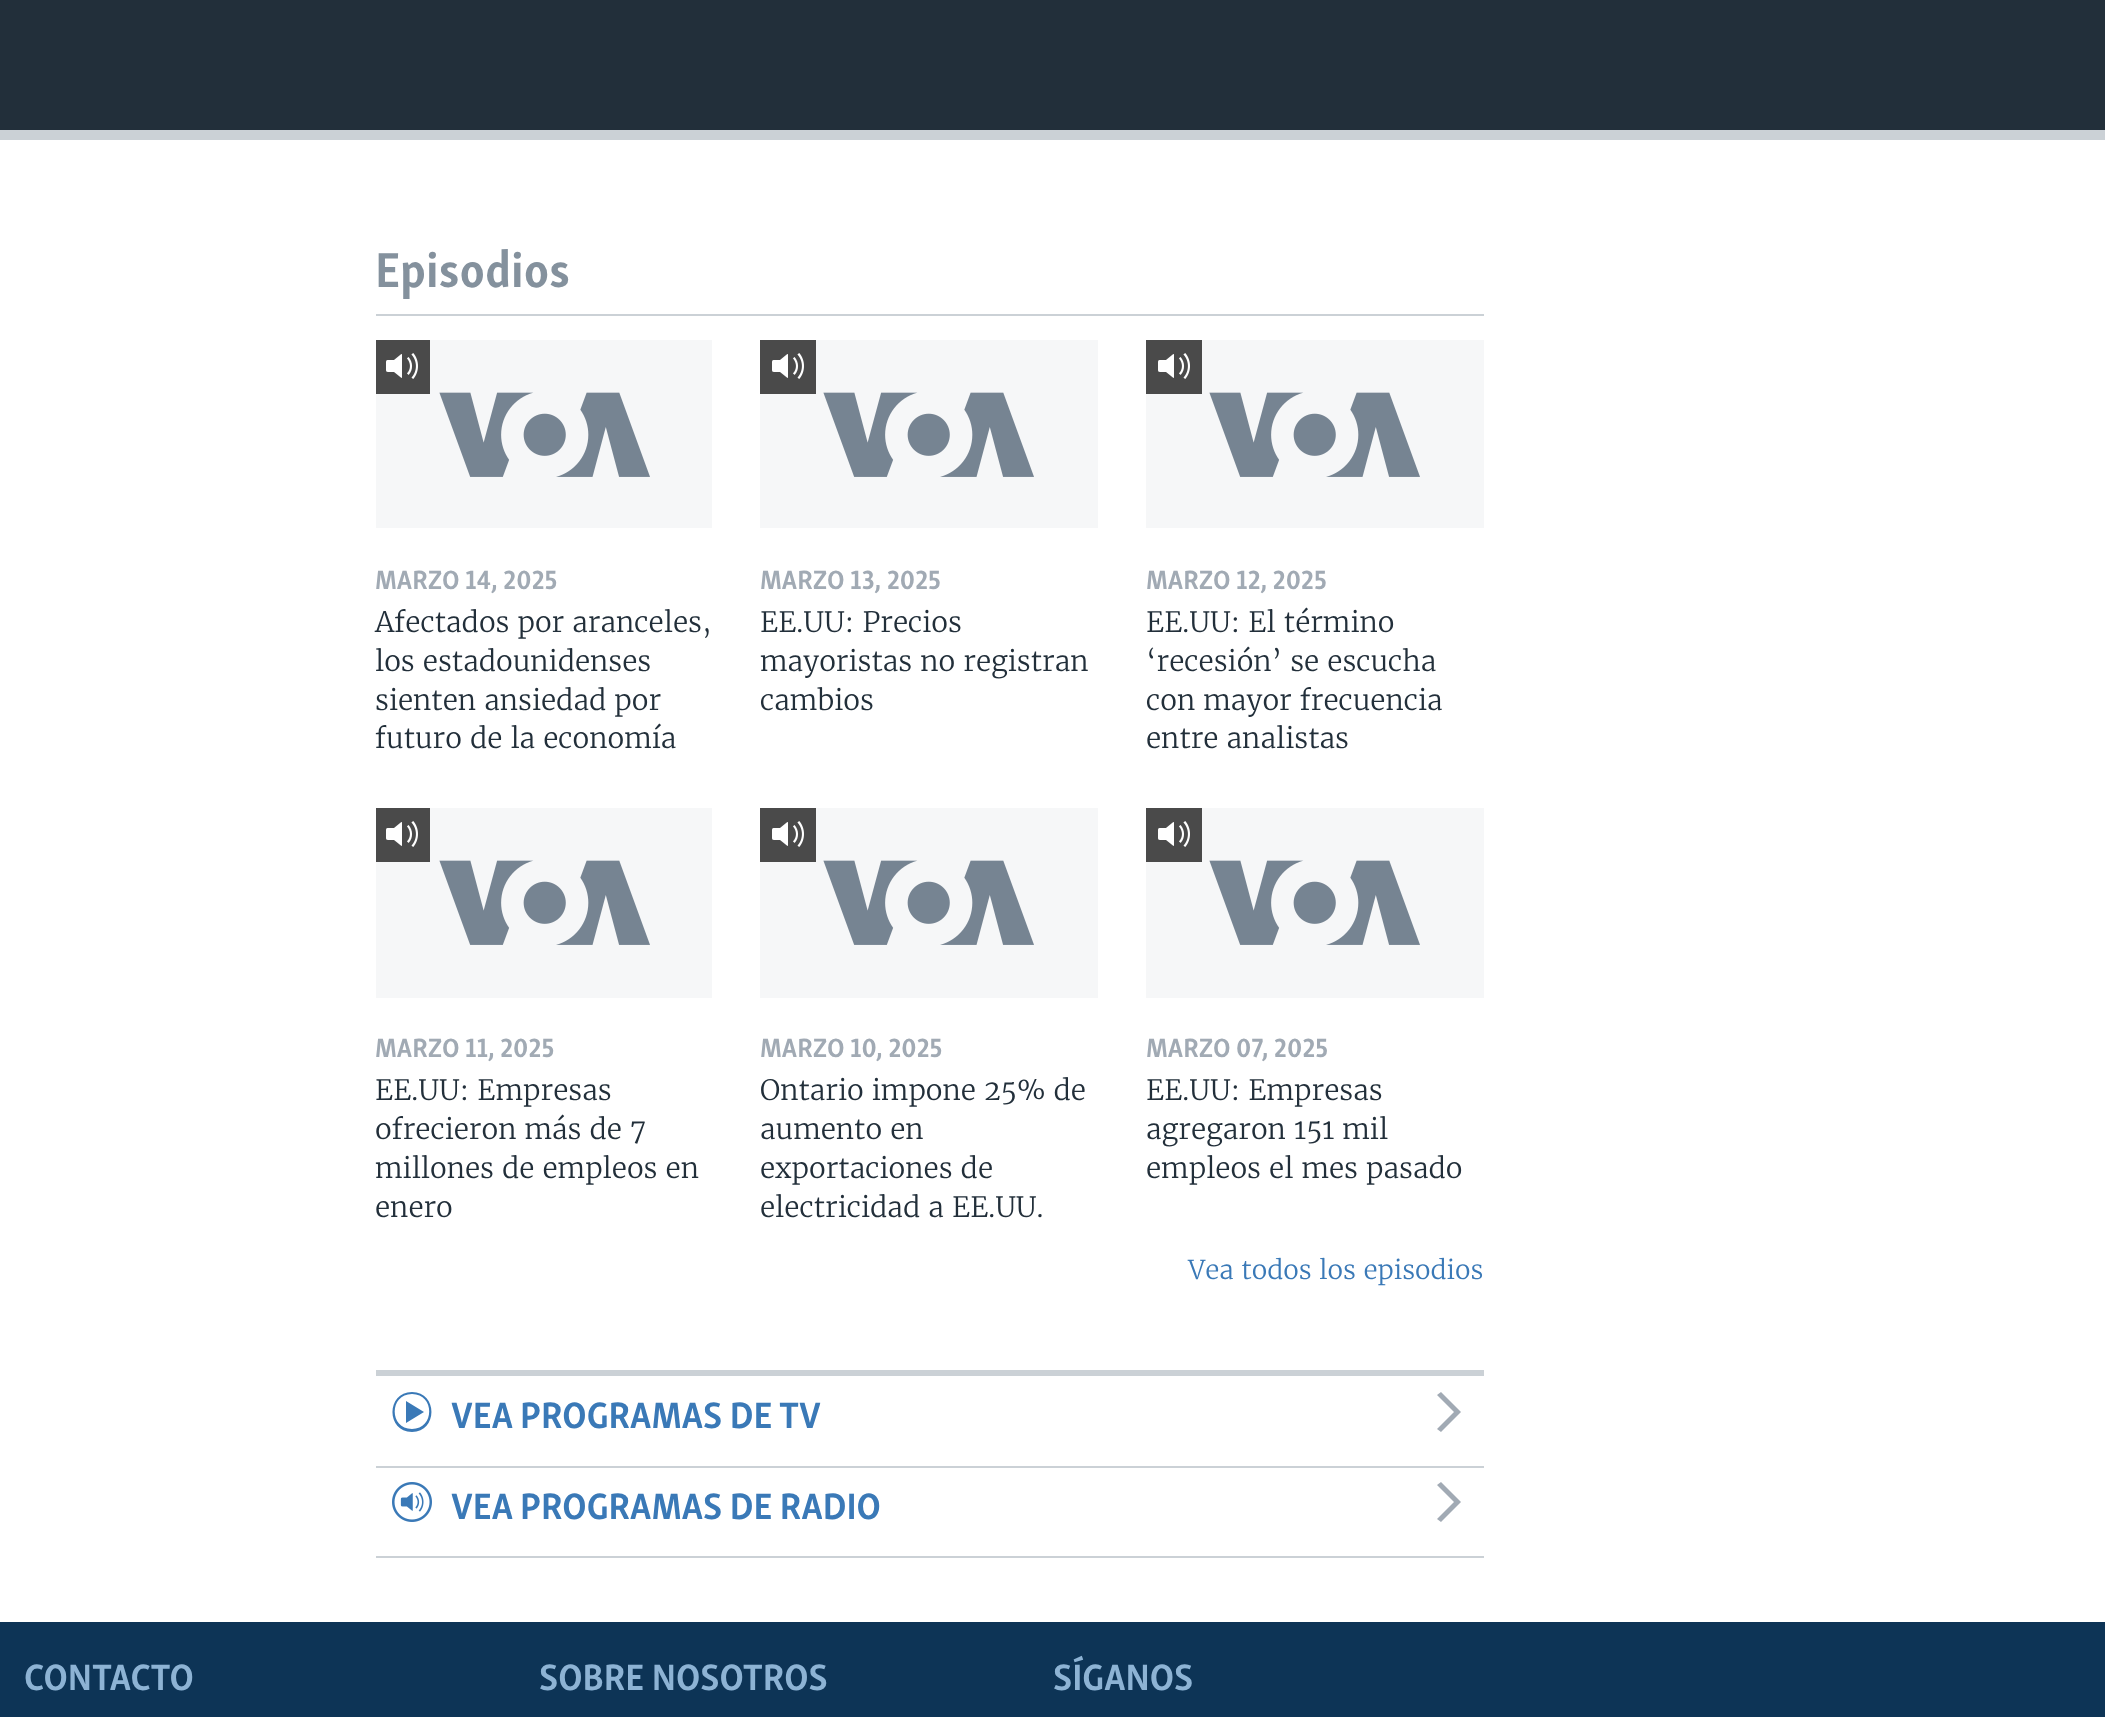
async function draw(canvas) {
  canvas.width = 2105
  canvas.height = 1717
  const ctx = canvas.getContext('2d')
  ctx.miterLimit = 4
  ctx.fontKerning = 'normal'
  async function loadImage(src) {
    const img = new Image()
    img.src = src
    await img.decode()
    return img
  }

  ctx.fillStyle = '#fff'
  ctx.fillRect(0, 0, 2105, 1717)
  ctx.fillStyle = '#222f3a'
  ctx.fillRect(0, 0, 2105, 130)
  ctx.fillStyle = '#cbd1d6'
  ctx.fillRect(0, 130, 2105, 10)
  ctx.fillRect(376, 314, 1108, 2)
  ctx.font = 'bold 50.5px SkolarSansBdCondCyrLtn'
  ctx.fillStyle = '#84919d'
  ctx.fillText('Episodios', 375, 287)
  ctx.fillStyle = '#f6f7f8'
  ctx.fillRect(376, 340, 336, 188)
  ctx.drawImage(await loadImage('image0.png'), 439, 392, 211, 85)
  ctx.fillStyle = '#4a4a4a'
  ctx.fillRect(376, 340, 54, 54)
  ctx.drawImage(await loadImage('image1.png'), 386, 353, 32, 26)
  ctx.font = 'bold 27.25px SkolarSansBdCondCyrLtn'
  ctx.fillStyle = '#a1aab4'
  ctx.fillText('MARZO 14, 2025', 375, 589)
  ctx.font = '300 28px Merriweather'
  ctx.fillStyle = '#222f3a'
  ctx.fillText('Afectados por aranceles,', 375, 632)
  ctx.fillText('los estadounidenses', 375, 671)
  ctx.fillText('sienten ansiedad por', 375, 710)
  ctx.fillText('futuro de la economía', 375, 748)
  ctx.fillStyle = '#f6f7f8'
  ctx.fillRect(760, 340, 338, 188)
  ctx.drawImage(await loadImage('image0.png'), 823, 392, 211, 85)
  ctx.fillStyle = '#4a4a4a'
  ctx.fillRect(760, 340, 56, 54)
  ctx.drawImage(await loadImage('image1.png'), 772, 353, 32, 26)
  ctx.font = 'bold 27.25px SkolarSansBdCondCyrLtn'
  ctx.fillStyle = '#a1aab4'
  ctx.fillText('MARZO 13, 2025', 760, 589)
  ctx.font = '300 28px Merriweather'
  ctx.fillStyle = '#222f3a'
  ctx.fillText('EE.UU: Precios', 760, 632)
  ctx.fillText('mayoristas no registran', 760, 671)
  ctx.fillText('cambios', 760, 710)
  ctx.fillStyle = '#f6f7f8'
  ctx.fillRect(1146, 340, 338, 188)
  ctx.drawImage(await loadImage('image0.png'), 1209, 392, 211, 85)
  ctx.fillStyle = '#4a4a4a'
  ctx.fillRect(1146, 340, 56, 54)
  ctx.drawImage(await loadImage('image1.png'), 1158, 353, 32, 26)
  ctx.font = 'bold 27.25px SkolarSansBdCondCyrLtn'
  ctx.fillStyle = '#a1aab4'
  ctx.fillText('MARZO 12, 2025', 1146, 589)
  ctx.font = '300 28px Merriweather'
  ctx.fillStyle = '#222f3a'
  ctx.fillText('EE.UU: El término', 1146, 632)
  ctx.fillText('‘recesión’ se escucha', 1146, 671)
  ctx.fillText('con mayor frecuencia', 1146, 710)
  ctx.fillText('entre analistas', 1146, 748)
  ctx.fillStyle = '#f6f7f8'
  ctx.fillRect(376, 808, 336, 190)
  ctx.drawImage(await loadImage('image0.png'), 439, 860, 211, 85)
  ctx.fillStyle = '#4a4a4a'
  ctx.fillRect(376, 808, 54, 54)
  ctx.drawImage(await loadImage('image1.png'), 386, 821, 32, 26)
  ctx.font = 'bold 27.25px SkolarSansBdCondCyrLtn'
  ctx.fillStyle = '#a1aab4'
  ctx.fillText('MARZO 11, 2025', 375, 1057)
  ctx.font = '300 28px Merriweather'
  ctx.fillStyle = '#222f3a'
  ctx.fillText('EE.UU: Empresas', 375, 1100)
  ctx.fillText('ofrecieron más de 7', 375, 1139)
  ctx.fillText('millones de empleos en', 375, 1178)
  ctx.fillText('enero', 375, 1217)
  ctx.fillStyle = '#f6f7f8'
  ctx.fillRect(760, 808, 338, 190)
  ctx.drawImage(await loadImage('image0.png'), 823, 860, 211, 85)
  ctx.fillStyle = '#4a4a4a'
  ctx.fillRect(760, 808, 56, 54)
  ctx.drawImage(await loadImage('image1.png'), 772, 821, 32, 26)
  ctx.font = 'bold 27.25px SkolarSansBdCondCyrLtn'
  ctx.fillStyle = '#a1aab4'
  ctx.fillText('MARZO 10, 2025', 760, 1057)
  ctx.font = '300 28px Merriweather'
  ctx.fillStyle = '#222f3a'
  ctx.fillText('Ontario impone 25% de', 760, 1100)
  ctx.fillText('aumento en', 760, 1139)
  ctx.fillText('exportaciones de', 760, 1178)
  ctx.fillText('electricidad a EE.UU.', 760, 1217)
  ctx.fillStyle = '#f6f7f8'
  ctx.fillRect(1146, 808, 338, 190)
  ctx.drawImage(await loadImage('image0.png'), 1209, 860, 211, 85)
  ctx.fillStyle = '#4a4a4a'
  ctx.fillRect(1146, 808, 56, 54)
  ctx.drawImage(await loadImage('image1.png'), 1158, 821, 32, 26)
  ctx.font = 'bold 27.25px SkolarSansBdCondCyrLtn'
  ctx.fillStyle = '#a1aab4'
  ctx.fillText('MARZO 07, 2025', 1146, 1057)
  ctx.font = '300 28px Merriweather'
  ctx.fillStyle = '#222f3a'
  ctx.fillText('EE.UU: Empresas', 1146, 1100)
  ctx.fillText('agregaron 151 mil', 1146, 1139)
  ctx.fillText('empleos el mes pasado', 1146, 1178)
  ctx.font = '300 26px Merriweather'
  ctx.fillStyle = '#3a79b7'
  ctx.fillText('Vea todos los episodios', 1188, 1279)
  ctx.fillStyle = '#cbd1d6'
  ctx.fillRect(376, 1370, 1108, 6)
  ctx.fillRect(376, 1466, 1108, 2)
  ctx.fillStyle = '#3a79b7'
  ctx.beginPath()
  ctx.moveTo(406, 1423)
  ctx.lineTo(424, 1412)
  ctx.lineTo(406, 1401)
  ctx.closePath()
  ctx.moveTo(412, 1394)
  ctx.bezierCurveTo(435, 1394, 435, 1429, 412, 1429)
  ctx.bezierCurveTo(389, 1429, 389, 1394, 412, 1394)
  ctx.closePath()
  ctx.moveTo(412, 1392)
  ctx.bezierCurveTo(386, 1392, 386, 1432, 412, 1432)
  ctx.bezierCurveTo(438, 1432, 438, 1392, 412, 1392)
  ctx.closePath()
  ctx.fill()
  ctx.font = 'bold 37.75px SkolarSansBdCondCyrLtn'
  ctx.fillText('VEA PROGRAMAS DE TV', 451, 1428)
  ctx.fillStyle = '#a1aab4'
  ctx.beginPath()
  ctx.moveTo(1441, 1432)
  ctx.lineTo(1461, 1412)
  ctx.lineTo(1441, 1392)
  ctx.lineTo(1437, 1395)
  ctx.lineTo(1454, 1412)
  ctx.lineTo(1437, 1429)
  ctx.closePath()
  ctx.fill()
  ctx.fillStyle = '#cbd1d6'
  ctx.fillRect(376, 1556, 1108, 2)
  ctx.drawImage(await loadImage('image2.png'), 392, 1482, 40, 40)
  ctx.fillStyle = '#3a79b7'
  ctx.fillText('VEA PROGRAMAS DE RADIO', 451, 1519)
  ctx.fillStyle = '#a1aab4'
  ctx.beginPath()
  ctx.moveTo(1441, 1522)
  ctx.lineTo(1461, 1502)
  ctx.lineTo(1441, 1482)
  ctx.lineTo(1437, 1485)
  ctx.lineTo(1454, 1502)
  ctx.lineTo(1437, 1519)
  ctx.closePath()
  ctx.fill()
  ctx.fillStyle = '#0d3456'
  ctx.fillRect(0, 1622, 2105, 95)
  ctx.fillStyle = '#8db3d4'
  ctx.fillText('CONTACTO', 24, 1690)
  ctx.fillText('SOBRE NOSOTROS', 539, 1690)
  ctx.fillText('SÍGANOS', 1053, 1690)
}

draw(document.querySelector('canvas'))
